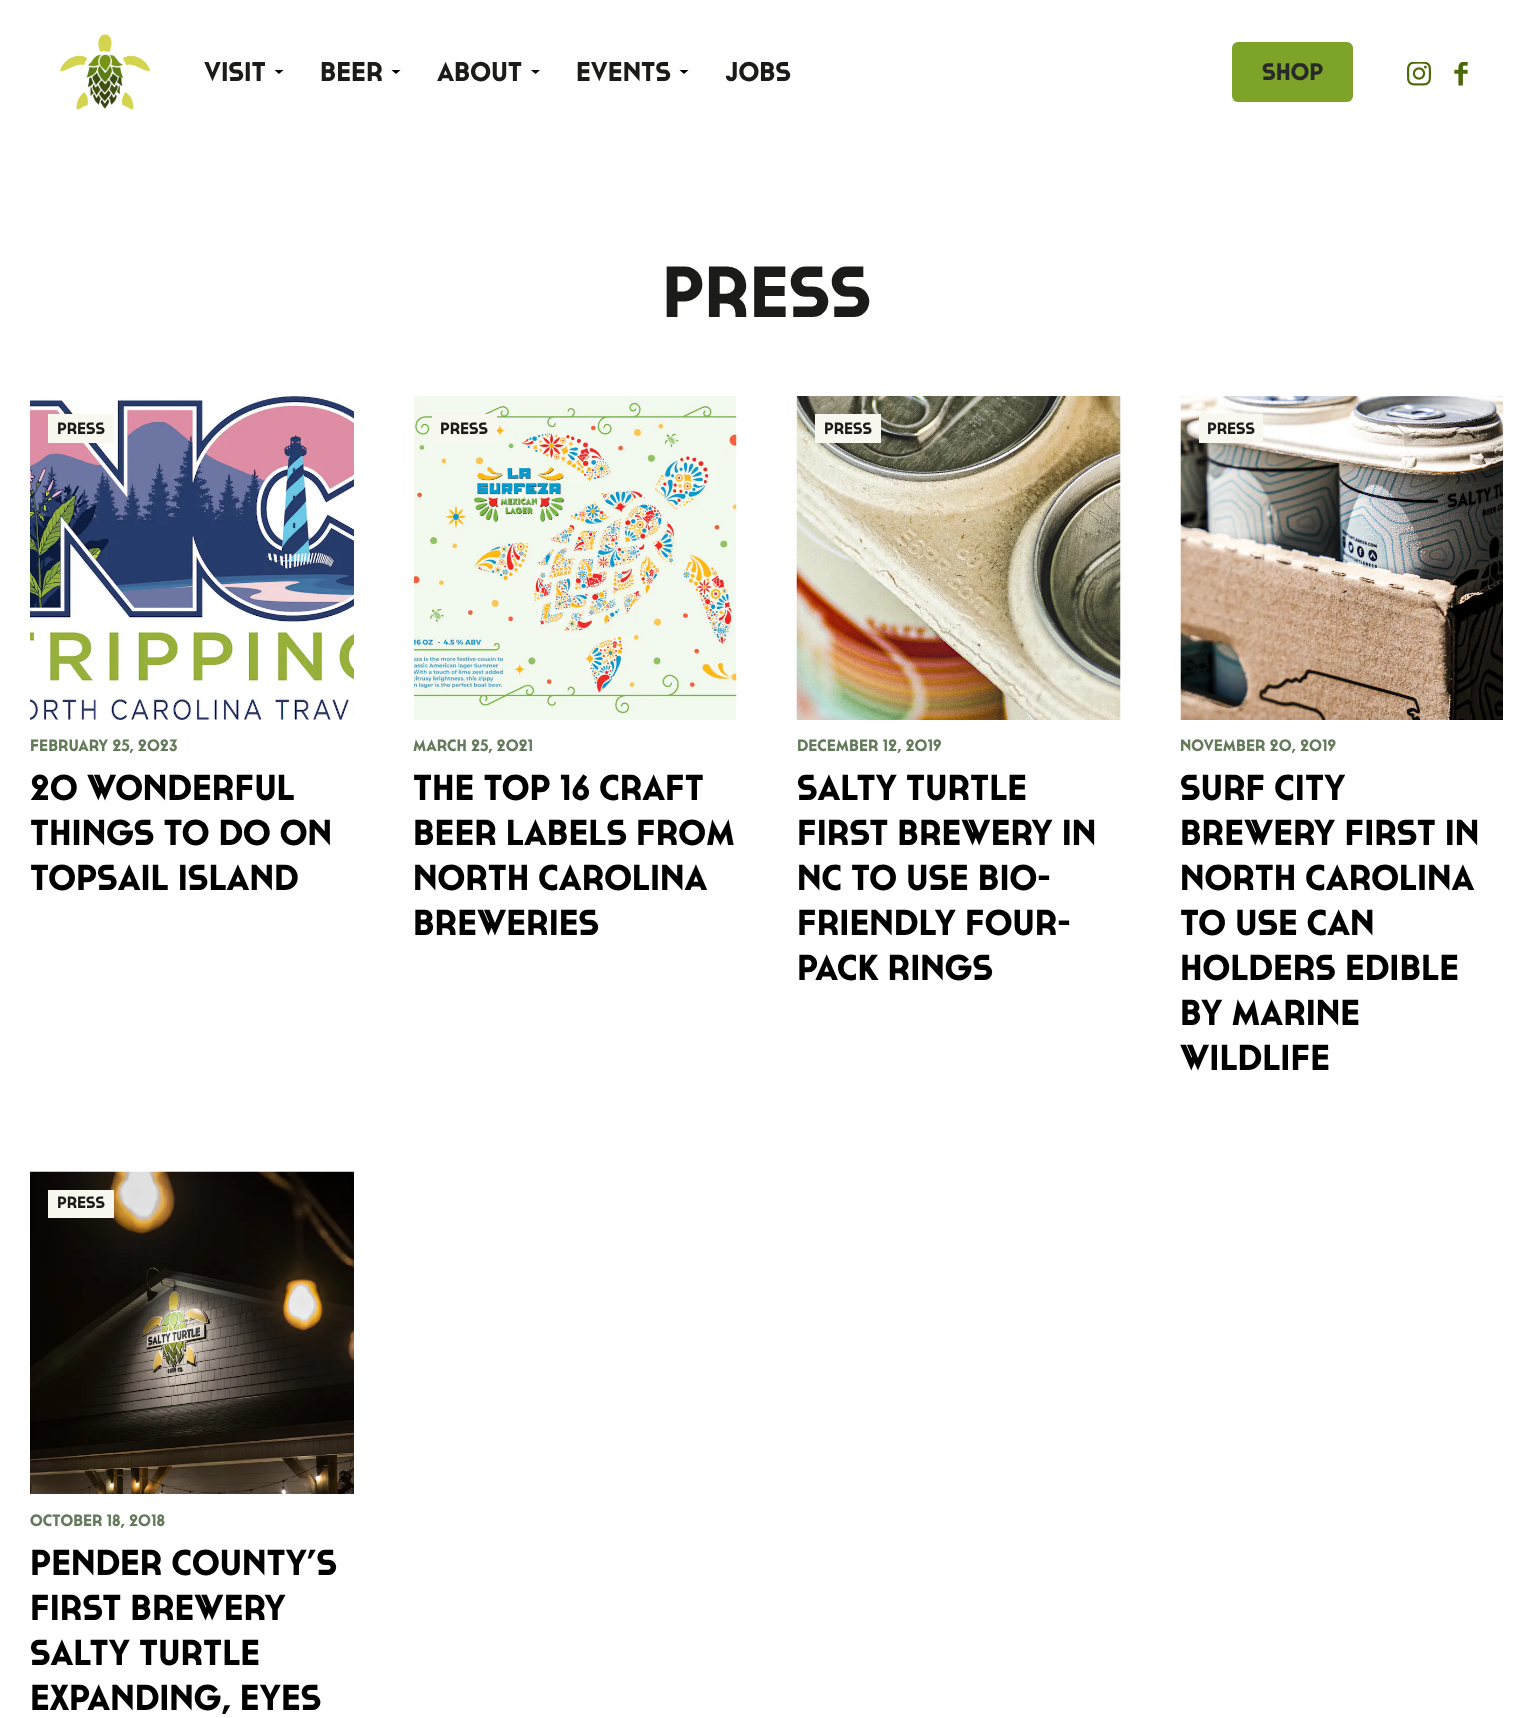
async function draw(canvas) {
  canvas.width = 1532
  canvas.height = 1718
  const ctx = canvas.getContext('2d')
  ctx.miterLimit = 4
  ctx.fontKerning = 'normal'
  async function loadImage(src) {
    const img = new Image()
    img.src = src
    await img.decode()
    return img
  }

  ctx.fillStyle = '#fff'
  ctx.fillRect(0, 0, 1532, 1718)
  ctx.drawImage(await loadImage('image0.png'), 60, 34, 90, 76)
  ctx.font = 'bold 27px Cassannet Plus'
  ctx.fillStyle = '#1b1b1a'
  ctx.fillText('Visit', 204, 81)
  ctx.fillStyle = '#000'
  ctx.beginPath()
  ctx.moveTo(274.5, 70)
  ctx.lineTo(283.5, 70)
  ctx.lineTo(279, 74)
  ctx.closePath()
  ctx.fill()
  ctx.fillStyle = '#1b1b1a'
  ctx.fillText('Beer', 320, 81)
  ctx.fillStyle = '#000'
  ctx.beginPath()
  ctx.moveTo(391.5, 70)
  ctx.lineTo(400.5, 70)
  ctx.lineTo(396, 74)
  ctx.closePath()
  ctx.fill()
  ctx.fillStyle = '#1b1b1a'
  ctx.fillText('About', 437, 81)
  ctx.fillStyle = '#000'
  ctx.beginPath()
  ctx.moveTo(531, 70)
  ctx.lineTo(540, 70)
  ctx.lineTo(535.5, 74)
  ctx.closePath()
  ctx.fill()
  ctx.fillStyle = '#1b1b1a'
  ctx.fillText('Events', 576, 81)
  ctx.fillStyle = '#000'
  ctx.beginPath()
  ctx.moveTo(679.5, 70)
  ctx.lineTo(688.5, 70)
  ctx.lineTo(684, 74)
  ctx.closePath()
  ctx.fill()
  ctx.fillStyle = '#1b1b1a'
  ctx.fillText('Jobs', 725, 81)
  ctx.fillStyle = '#7da328'
  ctx.beginPath()
  ctx.roundRect(1232, 42, 121, 60, 6)
  ctx.fill()
  ctx.font = 'bold 24px Cassannet Plus'
  ctx.fillStyle = '#292929'
  ctx.fillText('Shop', 1262, 80)
  ctx.drawImage(await loadImage('image1.png'), 1407, 62, 24, 24)
  ctx.drawImage(await loadImage('image2.png'), 1454, 62, 14, 24)
  ctx.font = 'bold 72px Cassannet Plus'
  ctx.fillStyle = '#1b1b1a'
  ctx.fillText('Press', 662, 317)
  ctx.drawImage(await loadImage('image3.png'), 30, 396, 324, 324)
  ctx.fillStyle = '#f8f7f0'
  ctx.fillRect(48, 414, 66, 29)
  ctx.font = 'bold 16.5px Cassannet Plus'
  ctx.fillStyle = '#1b1b1a'
  ctx.fillText('Press', 57, 434)
  ctx.fillStyle = '#647b5b'
  ctx.fillText('February 25, 2023', 30, 751)
  ctx.font = 'bold 36px Cassannet Plus'
  ctx.fillStyle = '#000'
  ctx.fillText('20 Wonderful', 30, 800)
  ctx.fillText('Things to Do on', 30, 845)
  ctx.fillText('Topsail Island', 30, 890)
  ctx.drawImage(await loadImage('image4.png'), 414, 396, 323, 324)
  ctx.fillStyle = '#f8f7f0'
  ctx.fillRect(432, 414, 65, 29)
  ctx.font = 'bold 16.5px Cassannet Plus'
  ctx.fillStyle = '#1b1b1a'
  ctx.fillText('Press', 440, 434)
  ctx.fillStyle = '#647b5b'
  ctx.fillText('March 25, 2021', 413, 751)
  ctx.font = 'bold 36px Cassannet Plus'
  ctx.fillStyle = '#000'
  ctx.fillText('The Top 16 Craft', 413, 800)
  ctx.fillText('Beer Labels from', 413, 845)
  ctx.fillText('North Carolina', 413, 890)
  ctx.fillText('Breweries', 413, 935)
  ctx.drawImage(await loadImage('image5.png'), 796, 396, 325, 324)
  ctx.fillStyle = '#f8f7f0'
  ctx.fillRect(815, 414, 66, 29)
  ctx.font = 'bold 16.5px Cassannet Plus'
  ctx.fillStyle = '#1b1b1a'
  ctx.fillText('Press', 824, 434)
  ctx.fillStyle = '#647b5b'
  ctx.fillText('December 12, 2019', 797, 751)
  ctx.font = 'bold 36px Cassannet Plus'
  ctx.fillStyle = '#000'
  ctx.fillText('Salty Turtle', 797, 800)
  ctx.fillText('first brewery in', 797, 845)
  ctx.fillText('NC to use bio-', 797, 890)
  ctx.fillText('friendly four-', 797, 935)
  ctx.fillText('pack rings', 797, 980)
  ctx.drawImage(await loadImage('image6.png'), 1180, 396, 323, 324)
  ctx.fillStyle = '#f8f7f0'
  ctx.fillRect(1199, 414, 64, 29)
  ctx.font = 'bold 16.5px Cassannet Plus'
  ctx.fillStyle = '#1b1b1a'
  ctx.fillText('Press', 1207, 434)
  ctx.fillStyle = '#647b5b'
  ctx.fillText('November 20, 2019', 1180, 751)
  ctx.font = 'bold 36px Cassannet Plus'
  ctx.fillStyle = '#000'
  ctx.fillText('Surf City', 1180, 800)
  ctx.fillText('brewery first in', 1180, 845)
  ctx.fillText('North Carolina', 1180, 890)
  ctx.fillText('to use can', 1180, 935)
  ctx.fillText('holders edible', 1180, 980)
  ctx.fillText('by marine', 1180, 1025)
  ctx.fillText('wildlife', 1180, 1070)
  ctx.drawImage(await loadImage('image7.png'), 30, 1171, 324, 323)
  ctx.fillStyle = '#f8f7f0'
  ctx.fillRect(48, 1190, 66, 28)
  ctx.font = 'bold 16.5px Cassannet Plus'
  ctx.fillStyle = '#1b1b1a'
  ctx.fillText('Press', 57, 1208)
  ctx.fillStyle = '#647b5b'
  ctx.fillText('October 18, 2018', 30, 1526)
  ctx.font = 'bold 36px Cassannet Plus'
  ctx.fillStyle = '#000'
  ctx.fillText('Pender County’s', 30, 1575)
  ctx.fillText('first brewery', 30, 1620)
  ctx.fillText('Salty Turtle', 30, 1665)
  ctx.fillText('expanding, eyes', 30, 1710)
}

draw(document.querySelector('canvas'))
